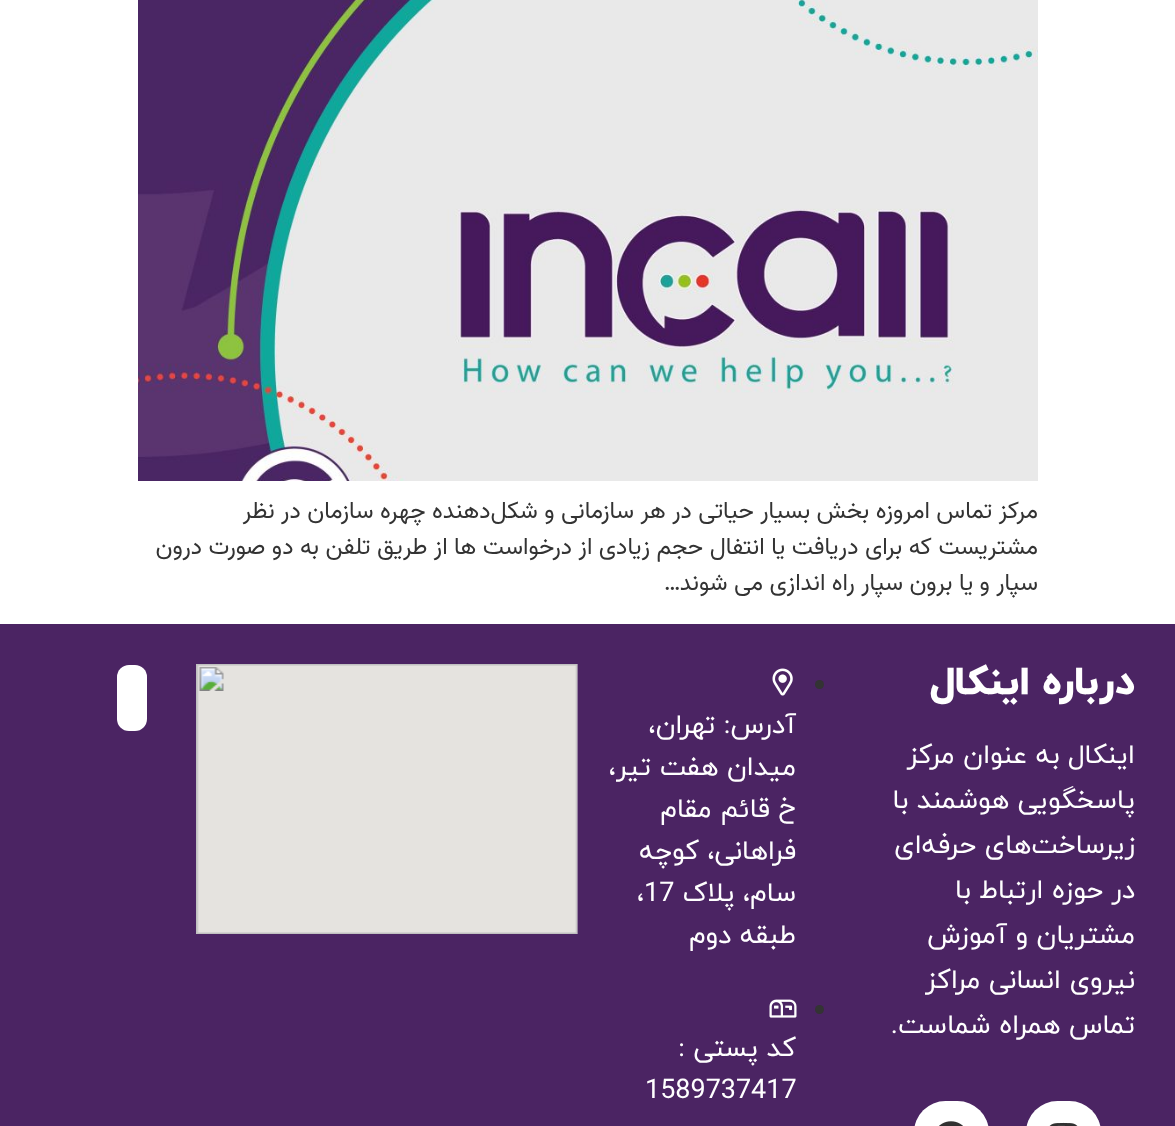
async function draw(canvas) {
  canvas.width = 1175
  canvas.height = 1126
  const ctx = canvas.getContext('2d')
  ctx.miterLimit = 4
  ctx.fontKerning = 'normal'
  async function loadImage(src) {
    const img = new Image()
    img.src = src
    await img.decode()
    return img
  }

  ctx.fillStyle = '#fff'
  ctx.fillRect(0, 0, 1175, 1126)
  ctx.drawImage(await loadImage('image0.png'), 138, 0, 900, 481)
  ctx.direction = 'rtl'
  ctx.font = '24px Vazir'
  ctx.fillStyle = '#333'
  ctx.fillText('مرکز تماس امروزه بخش بسیار حیاتی در هر سازمانی و شکل‌دهنده چهره سازمان در نظر', 1038, 518)
  ctx.fillText('مشتریست که برای دریافت یا انتفال حجم زیادی از درخواست ها از طریق تلفن به دو صورت درون', 1038, 554)
  ctx.fillText('سپار و یا برون سپار راه اندازی می شوند…', 1038, 590)
  ctx.fillStyle = '#4b2463'
  ctx.fillRect(0, 624, 1175, 502)
  ctx.font = '800 40.5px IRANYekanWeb'
  ctx.fillStyle = '#fff'
  ctx.fillText('درباره اینکال', 1135, 694)
  ctx.font = '27px IRANYekanWeb'
  ctx.fillText('اینکال به عنوان مرکز', 1135, 763)
  ctx.fillText('پاسخگویی هوشمند با', 1135, 808)
  ctx.fillText('زیرساخت‌های حرفه‌ای', 1135, 853)
  ctx.fillText('در حوزه ارتباط با', 1135, 898)
  ctx.fillText('مشتریان و آموزش', 1135, 943)
  ctx.fillText('نیروی انسانی مراکز', 1135, 988)
  ctx.fillText('تماس همراه شماست.', 1135, 1033)
  ctx.beginPath()
  ctx.roundRect(1026, 1101, 75, 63, 37.5)
  ctx.fill()
  ctx.drawImage(await loadImage('image1.png'), 1049, 1122, 29, 4)
  ctx.beginPath()
  ctx.roundRect(914, 1101, 75, 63, 37.5)
  ctx.fill()
  ctx.drawImage(await loadImage('image2.png'), 939, 1121, 24, 5)
  ctx.drawImage(await loadImage('image3.png'), 196, 664, 382, 270)
  ctx.beginPath()
  ctx.roundRect(117, 665, 30, 66, 12)
  ctx.fill()
  ctx.fillStyle = '#333'
  ctx.beginPath()
  ctx.arc(819.5, 684.5, 4.5, 0, 2 * Math.PI)
  ctx.fill()
  ctx.drawImage(await loadImage('image4.png'), 772, 668, 21, 28)
  ctx.fillStyle = '#fff'
  ctx.fillText('آدرس: تهران،', 796, 733)
  ctx.fillText('میدان هفت تیر،', 796, 775)
  ctx.fillText('خ قائم مقام', 796, 817)
  ctx.fillText('فراهانی، کوچه', 796, 859)
  ctx.fillText('سام، پلاک', 796, 901)
  ctx.direction = 'ltr'
  ctx.fillText('،17', 637, 901)
  ctx.direction = 'rtl'
  ctx.fillText('طبقه دوم', 796, 943)
  ctx.fillStyle = '#333'
  ctx.beginPath()
  ctx.arc(819.5, 1009.5, 4.5, 0, 2 * Math.PI)
  ctx.fill()
  ctx.drawImage(await loadImage('image5.png'), 769, 999, 28, 19)
  ctx.fillStyle = '#fff'
  ctx.fillText('کد پستی :', 796, 1056)
  ctx.direction = 'ltr'
  ctx.fillText('1589737417', 645, 1098)
}

draw(document.querySelector('canvas'))
